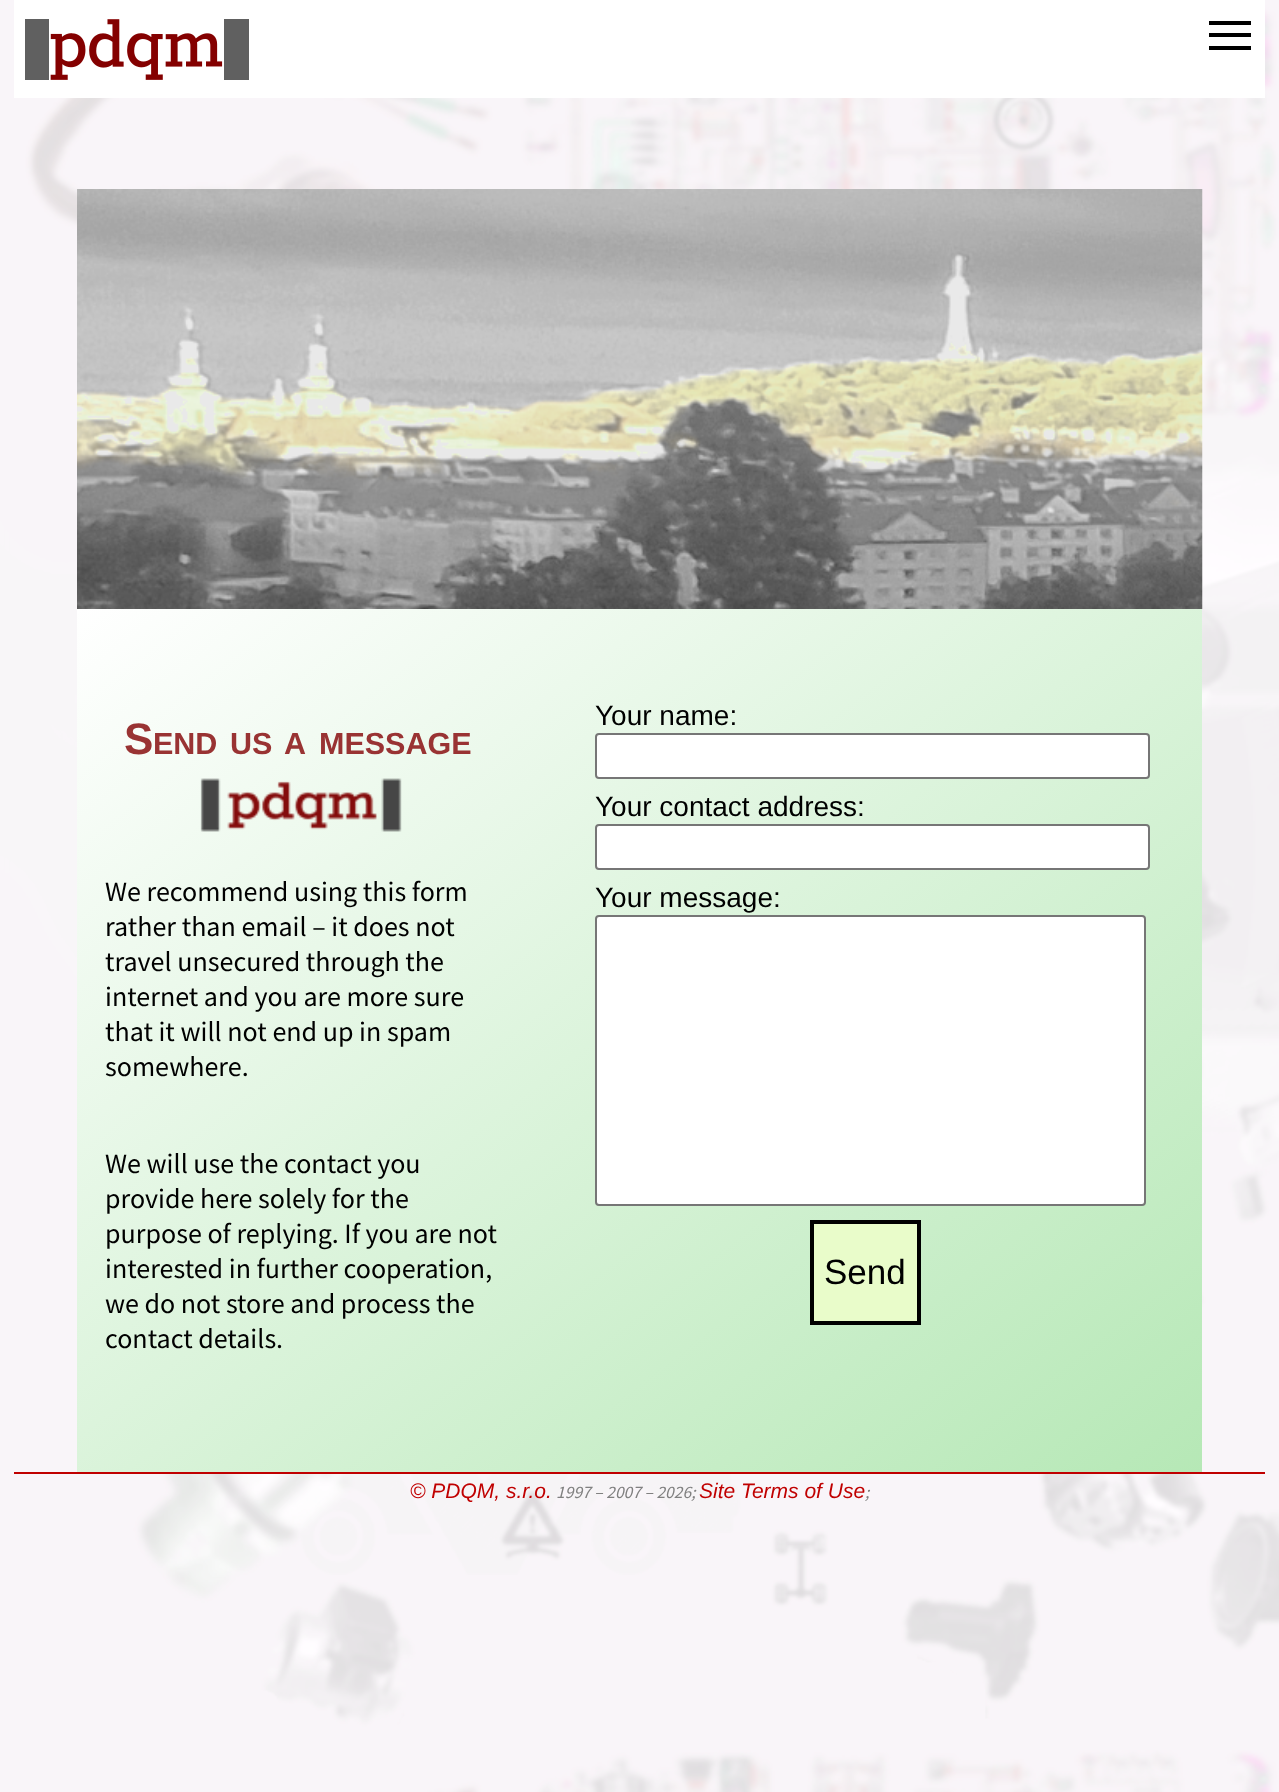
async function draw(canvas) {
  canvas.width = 1279
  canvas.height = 1792
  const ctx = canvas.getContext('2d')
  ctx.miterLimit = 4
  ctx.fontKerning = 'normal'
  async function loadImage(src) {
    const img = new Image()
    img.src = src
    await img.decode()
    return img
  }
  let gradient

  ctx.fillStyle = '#fff'
  ctx.fillRect(0, 0, 1279, 1792)
  ctx.drawImage(await loadImage('image0.png'), 0, 0, 1279, 1792)
  ctx.fillRect(14, 0, 1251, 98)
  ctx.drawImage(await loadImage('image1.png'), 25, 19, 224, 61)
  ctx.fillStyle = '#000'
  ctx.fillRect(1209, 33, 42, 4)
  ctx.fillRect(1209, 21, 42, 4)
  ctx.fillRect(1209, 46, 42, 4)
  ctx.fillStyle = '#c00000'
  ctx.fillRect(14, 1472, 1251, 2)
  ctx.drawImage(await loadImage('image2.png'), 77, 189, 1126, 420)
  gradient = ctx.createLinearGradient(1056, 1584, 223, 497)
  gradient.addColorStop(0, '#b6e8b6')
  gradient.addColorStop(1, '#fff')
  ctx.fillStyle = gradient
  ctx.fillRect(77, 609, 1125, 863)
  ctx.font = 'bold 44px Liberation Sans'
  ctx.fillStyle = '#933'
  ctx.fillText('S', 124, 754)
  ctx.font = 'bold 30.5px Liberation Sans'
  ctx.fillText('END', 153, 754)
  ctx.fillText('US', 230, 754)
  ctx.fillText('A', 284, 754)
  ctx.fillText('MESSAGE', 319, 754)
  ctx.drawImage(await loadImage('image3.png'), 200, 778, 202, 54)
  ctx.font = '28px Source Sans Pro'
  ctx.fillStyle = '#000'
  ctx.fillText('We recommend using this form', 105, 901)
  ctx.fillText('rather than email – it does not', 105, 936)
  ctx.fillText('travel unsecured through the', 105, 971)
  ctx.fillText('internet and you are more sure', 105, 1006)
  ctx.fillText('that it will not end up in spam', 105, 1041)
  ctx.fillText('somewhere.', 105, 1076)
  ctx.fillText('We will use the contact you', 105, 1173)
  ctx.fillText('provide here solely for the', 105, 1208)
  ctx.fillText('purpose of replying. If you are not', 105, 1243)
  ctx.fillText('interested in further cooperation,', 105, 1278)
  ctx.fillText('we do not store and process the', 105, 1313)
  ctx.fillText('contact details.', 105, 1348)
  ctx.font = '28px Liberation Sans'
  ctx.fillText('Your name:', 595, 725)
  ctx.fillStyle = '#fff'
  ctx.beginPath()
  ctx.roundRect(596, 734, 553, 44, 3)
  ctx.fill()
  ctx.strokeStyle = '#767676'
  ctx.lineWidth = 2
  ctx.stroke()
  ctx.fillStyle = '#000'
  ctx.fillText('Your contact address:', 595, 816)
  ctx.fillStyle = '#fff'
  ctx.beginPath()
  ctx.roundRect(596, 825, 553, 44, 3)
  ctx.fill()
  ctx.stroke()
  ctx.fillStyle = '#000'
  ctx.fillText('Your message:', 595, 907)
  ctx.fillStyle = '#fff'
  ctx.beginPath()
  ctx.roundRect(596, 916, 549, 289, 3)
  ctx.fill()
  ctx.stroke()
  ctx.fillStyle = '#e9fcca'
  ctx.beginPath()
  ctx.rect(812, 1222, 107, 101)
  ctx.fill()
  ctx.strokeStyle = '#000'
  ctx.lineWidth = 4
  ctx.stroke()
  ctx.font = '35px Liberation Sans'
  ctx.fillStyle = '#000'
  ctx.fillText('Send', 824, 1284)
  ctx.font = 'italic 21px Liberation Sans'
  ctx.fillStyle = '#c00000'
  ctx.fillText('© PDQM, s.r.o.', 410, 1498)
  ctx.font = 'italic 17.5px Source Sans Pro'
  ctx.fillStyle = '#808080'
  ctx.fillText('1997 – 2007 – 2026;', 556, 1498)
  ctx.font = 'italic 21px Liberation Sans'
  ctx.fillStyle = '#c00000'
  ctx.fillText('Site Terms of Use', 699, 1498)
  ctx.font = 'italic 17.5px Source Sans Pro'
  ctx.fillStyle = '#808080'
  ctx.fillText(';', 865, 1498)
}

draw(document.querySelector('canvas'))
